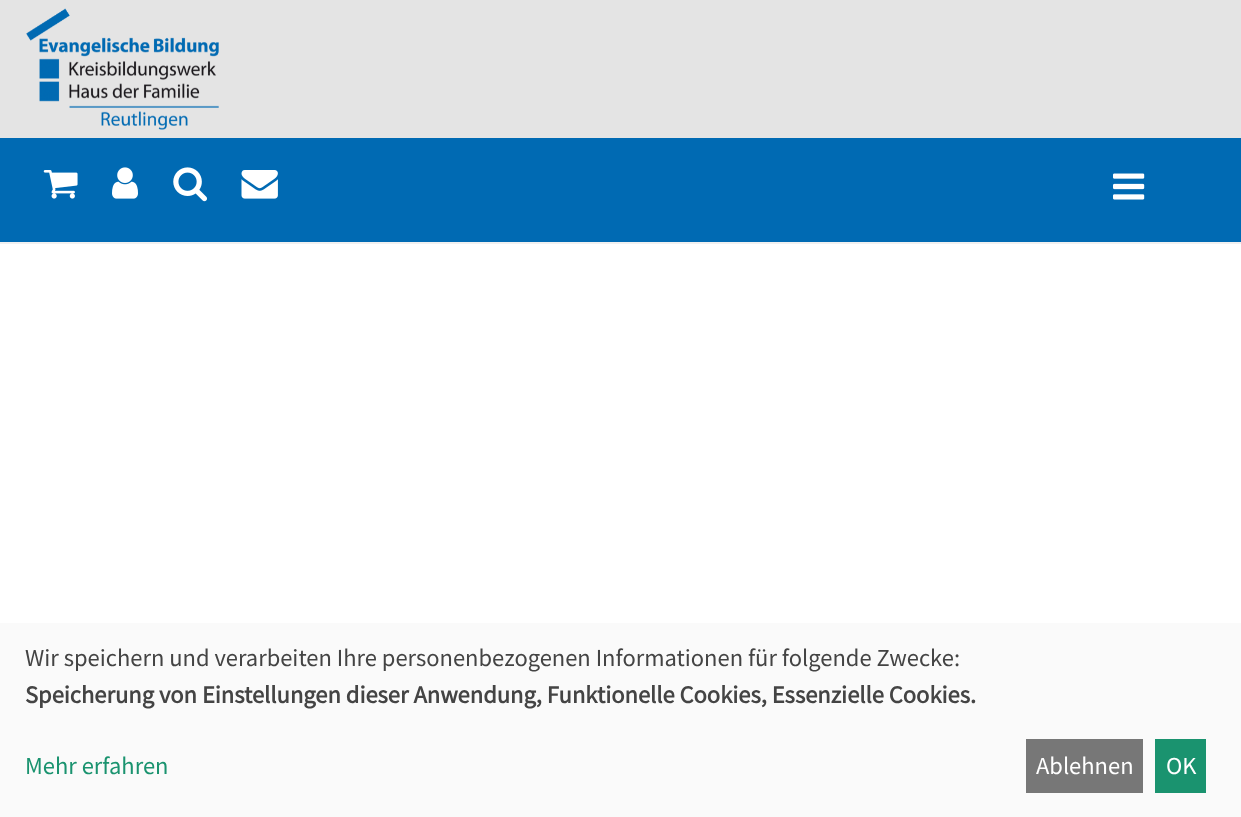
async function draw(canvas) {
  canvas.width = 1241
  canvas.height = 817
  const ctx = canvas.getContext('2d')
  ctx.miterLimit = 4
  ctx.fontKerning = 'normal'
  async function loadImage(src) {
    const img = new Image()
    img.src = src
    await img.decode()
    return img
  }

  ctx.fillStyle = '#fff'
  ctx.fillRect(0, 0, 1241, 817)
  ctx.fillStyle = '#e4e4e4'
  ctx.fillRect(0, 0, 1241, 138)
  ctx.fillStyle = '#f0f0f0'
  ctx.fillRect(0, 242, 1241, 2)
  ctx.drawImage(await loadImage('image0.png'), 26, 8, 193, 122)
  ctx.fillStyle = '#006ab3'
  ctx.fillRect(0, 138, 1241, 104)
  ctx.drawImage(await loadImage('image1.png'), 43, 170, 35, 29)
  ctx.drawImage(await loadImage('image2.png'), 112, 167, 26, 32)
  ctx.drawImage(await loadImage('image3.png'), 173, 167, 34, 35)
  ctx.drawImage(await loadImage('image4.png'), 241, 170, 37, 29)
  ctx.drawImage(await loadImage('image5.png'), 1113, 173, 32, 27)
  ctx.fillStyle = '#fafafa'
  ctx.fillRect(0, 623, 1241, 194)
  ctx.font = '24.5px Source Sans Pro'
  ctx.fillStyle = '#444'
  ctx.fillText('Wir speichern und verarbeiten Ihre personenbezogenen Informationen für folgende Zwecke:', 25, 666)
  ctx.font = 'bold 24.5px Source Sans Pro'
  ctx.fillText('Speicherung von Einstellungen dieser Anwendung, Funktionelle Cookies, Essenzielle Cookies.', 25, 703)
  ctx.font = '24.5px Source Sans Pro'
  ctx.fillStyle = '#1a936f'
  ctx.fillText('Mehr erfahren', 25, 774)
  ctx.fillStyle = '#777'
  ctx.fillRect(1026, 739, 117, 54)
  ctx.fillStyle = '#fff'
  ctx.fillText('Ablehnen', 1036, 774)
  ctx.fillStyle = '#1a936f'
  ctx.fillRect(1155, 739, 51, 54)
  ctx.fillStyle = '#fff'
  ctx.fillText('OK', 1166, 774)
}

draw(document.querySelector('canvas'))
